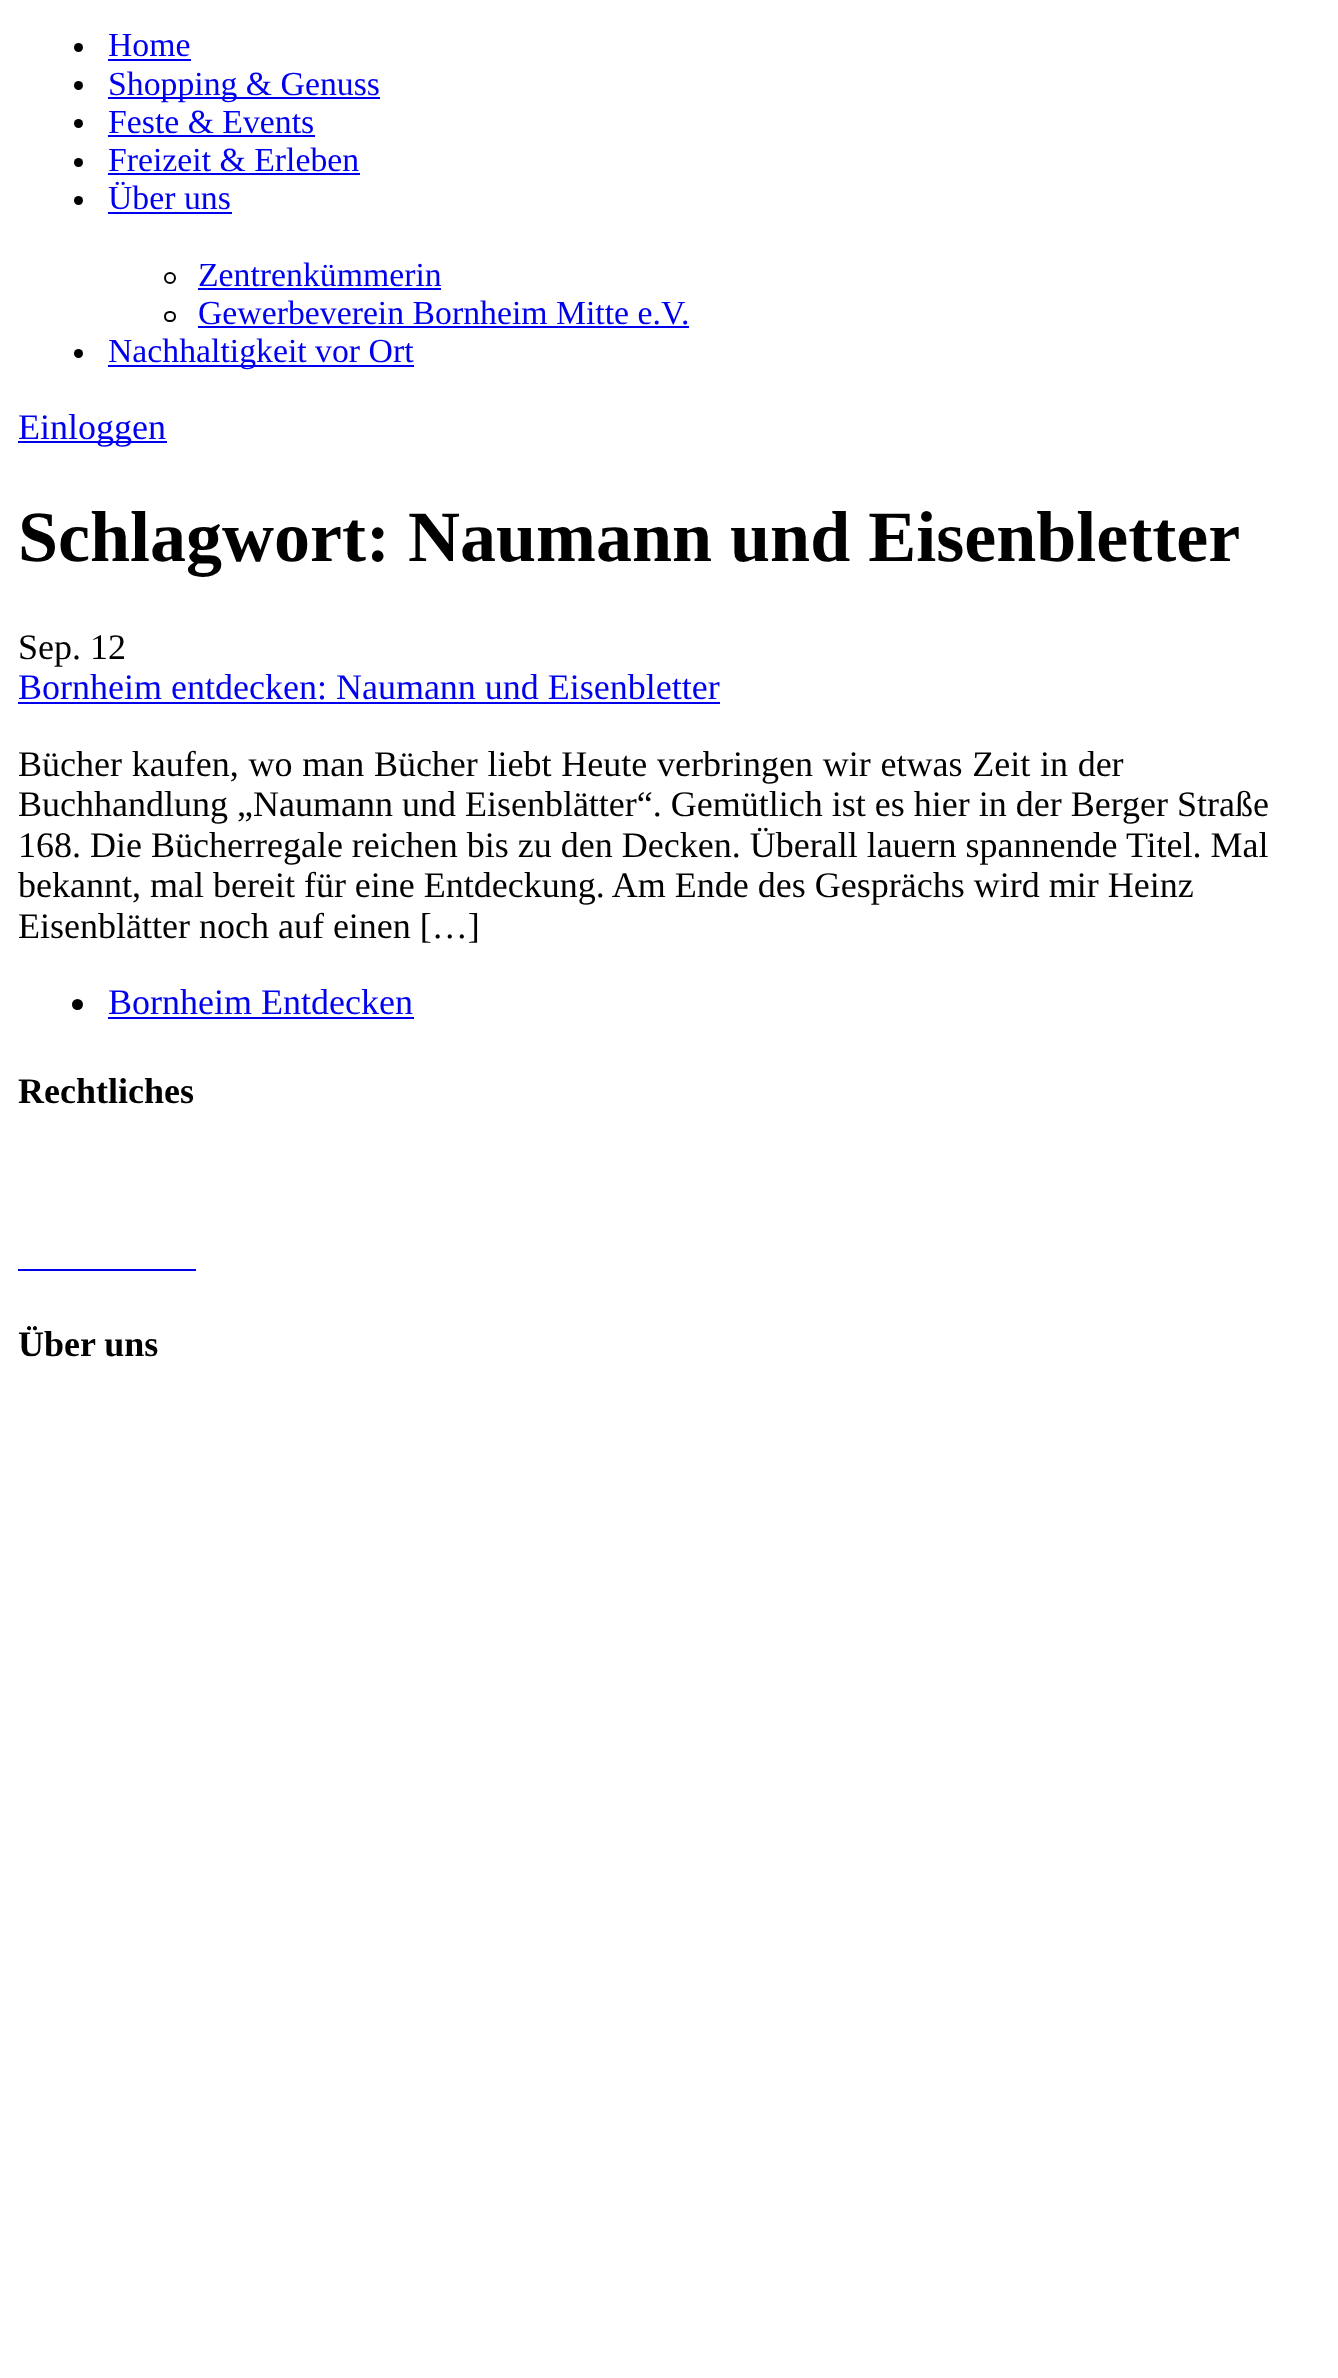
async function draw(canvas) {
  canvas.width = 1338
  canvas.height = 2378
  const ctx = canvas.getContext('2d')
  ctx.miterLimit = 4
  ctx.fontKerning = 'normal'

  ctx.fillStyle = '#fff'
  ctx.fillRect(0, 0, 1338, 2378)
  ctx.fillStyle = '#000'
  ctx.beginPath()
  ctx.arc(78.5, 47.5, 4.5, 0, 2 * Math.PI)
  ctx.fill()
  ctx.font = '33.75px Liberation Serif'
  ctx.fillStyle = '#00e'
  ctx.fillText('Home', 108, 56)
  ctx.fillRect(108, 59, 83, 2)
  ctx.fillStyle = '#000'
  ctx.beginPath()
  ctx.arc(78.5, 85.5, 4.5, 0, 2 * Math.PI)
  ctx.fill()
  ctx.fillStyle = '#00e'
  ctx.fillRect(108, 97, 272, 2)
  ctx.fillText('Shopping & Genuss', 108, 95)
  ctx.fillStyle = '#000'
  ctx.beginPath()
  ctx.arc(78.5, 123.5, 4.5, 0, 2 * Math.PI)
  ctx.fill()
  ctx.fillStyle = '#00e'
  ctx.fillText('Feste & Events', 108, 133)
  ctx.fillRect(108, 135, 207, 2)
  ctx.fillStyle = '#000'
  ctx.beginPath()
  ctx.arc(78.5, 162.5, 4.5, 0, 2 * Math.PI)
  ctx.fill()
  ctx.fillStyle = '#00e'
  ctx.fillText('Freizeit & Erleben', 108, 171)
  ctx.fillRect(108, 173, 252, 2)
  ctx.fillStyle = '#000'
  ctx.beginPath()
  ctx.arc(78.5, 200.5, 4.5, 0, 2 * Math.PI)
  ctx.fill()
  ctx.fillStyle = '#00e'
  ctx.fillText('Über uns', 108, 209)
  ctx.fillRect(108, 212, 124, 2)
  ctx.beginPath()
  ctx.arc(170, 278, 5, 0, 2 * Math.PI)
  ctx.strokeStyle = '#000'
  ctx.lineWidth = 2
  ctx.stroke()
  ctx.fillText('Zentrenkümmerin', 198, 286)
  ctx.fillRect(198, 288, 243, 2)
  ctx.beginPath()
  ctx.roundRect(165, 312, 10, 9, 4.5)
  ctx.stroke()
  ctx.fillText('Gewerbeverein Bornheim Mitte e.V.', 198, 324)
  ctx.fillRect(198, 326, 491, 2)
  ctx.fillStyle = '#000'
  ctx.beginPath()
  ctx.arc(78.5, 353.5, 4.5, 0, 2 * Math.PI)
  ctx.fill()
  ctx.fillStyle = '#00e'
  ctx.fillRect(108, 365, 306, 2)
  ctx.fillText('Nachhaltigkeit vor Ort', 108, 362)
  ctx.fillRect(18, 441, 149, 2)
  ctx.font = '36px Liberation Serif'
  ctx.fillText('Einloggen', 18, 439)
  ctx.font = 'bold 72px Liberation Serif'
  ctx.fillStyle = '#000'
  ctx.fillText('Schlagwort: Naumann und Eisenbletter', 18, 561)
  ctx.font = '36px Liberation Serif'
  ctx.fillText('Sep. 12', 18, 659)
  ctx.fillStyle = '#00e'
  ctx.fillText('Bornheim entdecken: Naumann und Eisenbletter', 18, 699)
  ctx.fillRect(18, 702, 702, 2)
  ctx.wordSpacing = '0.75px'
  ctx.fillStyle = '#000'
  ctx.fillText('Bücher kaufen, wo man Bücher liebt Heute verbringen wir etwas Zeit in der', 18, 776)
  ctx.wordSpacing = '0px'
  ctx.fillText('Buchhandlung „Naumann und Eisenblätter“. Gemütlich ist es hier in der Berger Straße', 18, 816)
  ctx.fillText('168. Die Bücherregale reichen bis zu den Decken. Überall lauern spannende Titel. Mal', 18, 857)
  ctx.fillText('bekannt, mal bereit für eine Entdeckung. Am Ende des Gesprächs wird mir Heinz', 18, 897)
  ctx.fillText('Eisenblätter noch auf einen […]', 18, 938)
  ctx.beginPath()
  ctx.arc(77.5, 1004.5, 5.5, 0, 2 * Math.PI)
  ctx.fill()
  ctx.fillStyle = '#00e'
  ctx.fillText('Bornheim Entdecken', 108, 1014)
  ctx.fillRect(108, 1017, 306, 2)
  ctx.font = 'bold 36px Liberation Serif'
  ctx.fillStyle = '#000'
  ctx.fillText('Rechtliches', 18, 1103)
  ctx.fillStyle = '#00e'
  ctx.fillRect(18, 1269, 178, 2)
  ctx.fillStyle = '#000'
  ctx.fillText('Über uns', 18, 1356)
}

draw(document.querySelector('canvas'))
